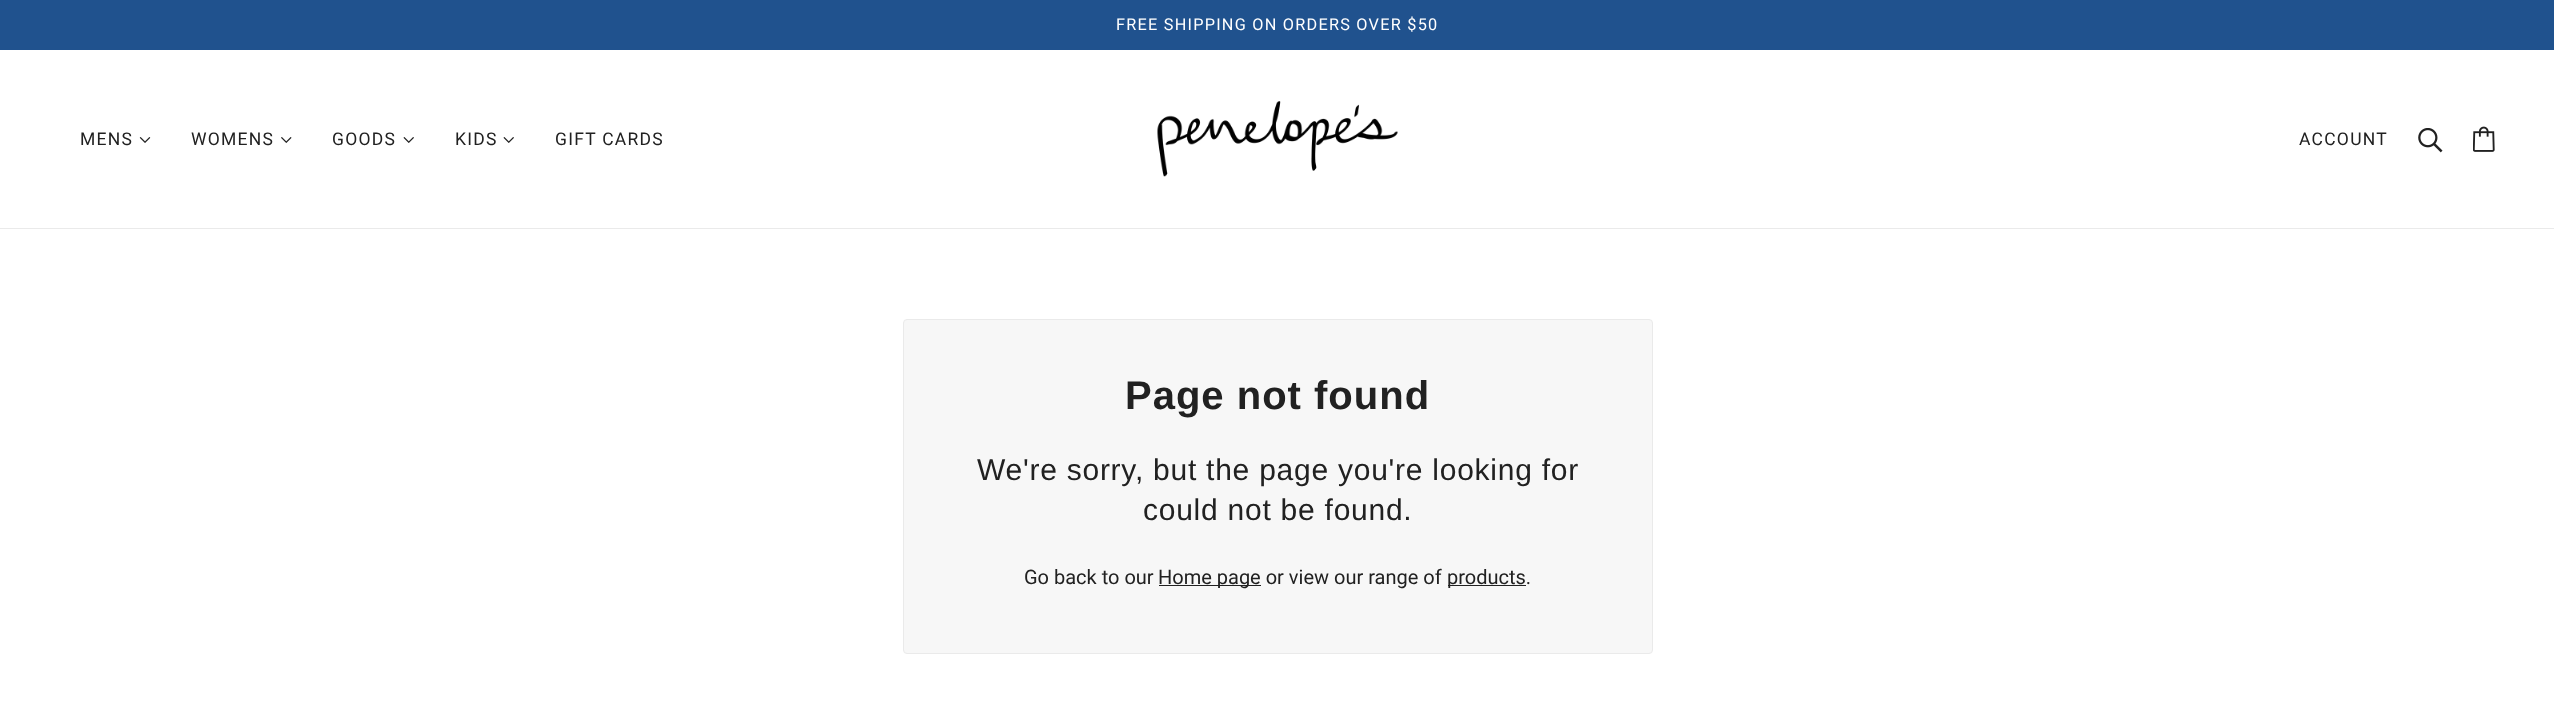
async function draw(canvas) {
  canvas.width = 2554
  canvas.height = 720
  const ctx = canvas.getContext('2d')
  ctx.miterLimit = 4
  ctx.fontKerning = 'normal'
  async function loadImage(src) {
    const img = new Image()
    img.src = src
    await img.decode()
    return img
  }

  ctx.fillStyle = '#fff'
  ctx.fillRect(0, 0, 2554, 720)
  ctx.fillStyle = '#20528e'
  ctx.fillRect(0, 0, 2554, 50)
  ctx.letterSpacing = '1.25px'
  ctx.font = '16.25px Roboto'
  ctx.fillStyle = '#fff'
  ctx.fillText('FREE SHIPPING ON ORDERS OVER $50', 1116, 30)
  ctx.fillStyle = '#eaeaea'
  ctx.fillRect(0, 228, 2554, 1)
  ctx.font = '17.5px Roboto'
  ctx.fillStyle = '#212121'
  ctx.fillText('MENS', 80, 145)
  ctx.drawImage(await loadImage('image0.png'), 139, 137, 12, 6)
  ctx.fillText('WOMENS', 191, 145)
  ctx.drawImage(await loadImage('image1.png'), 281, 137, 11, 6)
  ctx.fillText('GOODS', 332, 145)
  ctx.drawImage(await loadImage('image2.png'), 403, 137, 11, 6)
  ctx.fillText('KIDS', 455, 145)
  ctx.drawImage(await loadImage('image2.png'), 503, 137, 11, 6)
  ctx.fillText('GIFT CARDS', 555, 145)
  ctx.drawImage(await loadImage('image3.png'), 1157, 101, 241, 76)
  ctx.fillText('ACCOUNT', 2299, 145)
  ctx.drawImage(await loadImage('image4.png'), 2418, 128, 25, 25)
  ctx.drawImage(await loadImage('image5.png'), 2473, 126, 22, 26)
  ctx.fillStyle = '#f7f7f7'
  ctx.beginPath()
  ctx.roundRect(903.5, 319.5, 749, 334, 3.5)
  ctx.fill()
  ctx.strokeStyle = '#eaeaea'
  ctx.stroke()
  ctx.letterSpacing = '1px'
  ctx.font = 'bold 40px Arimo'
  ctx.fillStyle = '#212121'
  ctx.fillText('Page not found', 1125, 409)
  ctx.letterSpacing = '0.75px'
  ctx.font = '30px Arimo'
  ctx.fillText('We\'re sorry, but the page you\'re looking for', 977, 480)
  ctx.fillText('could not be found.', 1143, 520)
  ctx.letterSpacing = '0px'
  ctx.font = '20px Roboto'
  ctx.fillText('Go back to our', 1024, 584)
  ctx.fillRect(1159, 585, 102, 1)
  ctx.fillText('Home page or view our range of', 1158, 584)
  ctx.fillRect(1448, 585, 78, 1)
  ctx.fillText('products.', 1447, 584)
}

draw(document.querySelector('canvas'))
